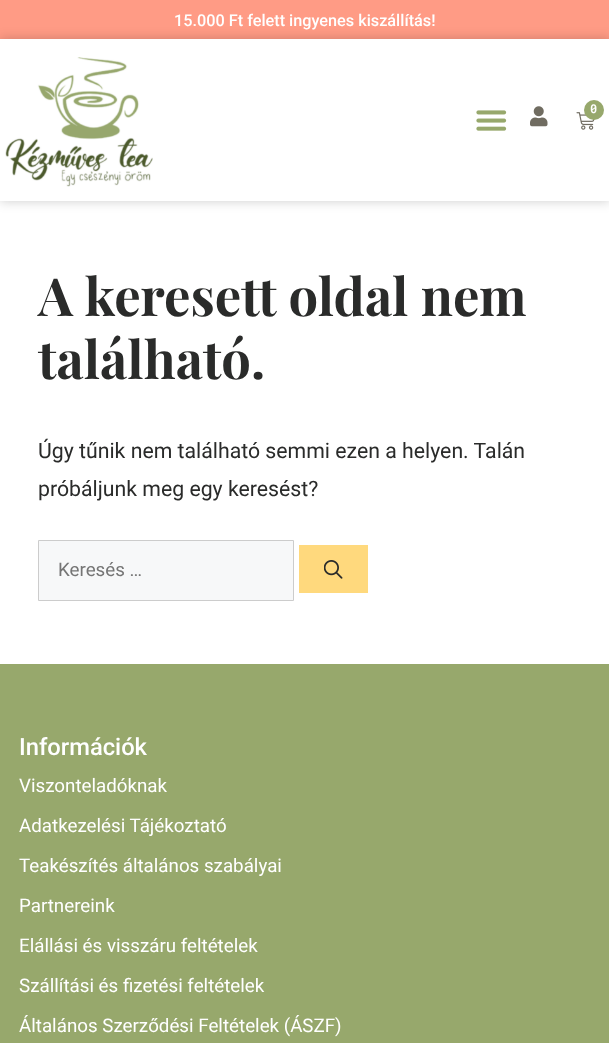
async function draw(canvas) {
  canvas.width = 609
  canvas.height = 1043
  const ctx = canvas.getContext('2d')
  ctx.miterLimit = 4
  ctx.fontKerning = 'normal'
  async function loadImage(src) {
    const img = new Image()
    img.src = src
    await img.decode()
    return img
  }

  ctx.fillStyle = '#fff'
  ctx.fillRect(0, 0, 609, 1043)
  ctx.fillStyle = '#ff9b85'
  ctx.fillRect(0, 0, 609, 39)
  ctx.font = '500 16.25px Roboto'
  ctx.fillStyle = '#fff'
  ctx.fillText('15.000 Ft felett ingyenes kiszállítás!', 174, 26)
  ctx.save()
  ctx.beginPath()
  ctx.moveTo(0, 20)
  ctx.lineTo(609, 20)
  ctx.lineTo(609, 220)
  ctx.lineTo(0, 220)
  ctx.closePath()
  ctx.moveTo(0, 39)
  ctx.lineTo(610, 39)
  ctx.lineTo(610, 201)
  ctx.lineTo(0, 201)
  ctx.closePath()
  ctx.clip('evenodd')
  ctx.fillStyle = '#00000033'
  ctx.filter = 'blur(6px)'
  ctx.beginPath()
  ctx.rect(0, 39, 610, 162)
  ctx.fill()
  ctx.filter = 'none'
  ctx.restore()
  ctx.drawImage(await loadImage('image0.png'), 5, 57, 148, 130)
  ctx.drawImage(await loadImage('image1.png'), 476, 110, 31, 21)
  ctx.drawImage(await loadImage('image2.png'), 530, 106, 18, 21)
  ctx.drawImage(await loadImage('image3.png'), 576, 112, 19, 18)
  ctx.fillStyle = '#97a86c'
  ctx.beginPath()
  ctx.arc(594, 110, 10, 0, 2 * Math.PI)
  ctx.fill()
  ctx.font = '600 12px Roboto Mono'
  ctx.fillStyle = '#fff'
  ctx.fillText('0', 590, 113)
  ctx.font = 'bold 52.5px Playfair Display'
  ctx.fillStyle = '#2a2b2a'
  ctx.fillText('A keresett oldal nem', 38, 316)
  ctx.fillText('található.', 38, 379)
  ctx.font = '21.25px Roboto'
  ctx.fillText('Úgy tűnik nem található semmi ezen a helyen. Talán', 38, 458)
  ctx.fillText('próbáljunk meg egy keresést?', 38, 496)
  ctx.fillStyle = '#f7f8f9'
  ctx.beginPath()
  ctx.rect(38.5, 540.5, 255, 60)
  ctx.fill()
  ctx.strokeStyle = '#ccc'
  ctx.stroke()
  ctx.font = '18.75px Roboto'
  ctx.fillStyle = '#757575'
  ctx.fillText('Keresés …', 58, 576)
  ctx.fillStyle = '#ffd97d'
  ctx.fillRect(299, 545, 69, 48)
  ctx.drawImage(await loadImage('image4.png'), 324, 560, 19, 19)
  ctx.fillStyle = '#97a86c'
  ctx.fillRect(0, 664, 609, 379)
  ctx.font = '500 23.75px Roboto'
  ctx.fillStyle = '#fff'
  ctx.fillText('Információk', 19, 755)
  ctx.font = '18.75px Roboto'
  ctx.fillText('Viszonteladóknak', 19, 792)
  ctx.fillText('Adatkezelési Tájékoztató', 19, 832)
  ctx.fillText('Teakészítés általános szabályai', 19, 872)
  ctx.fillText('Partnereink', 19, 912)
  ctx.fillText('Elállási és visszáru feltételek', 19, 952)
  ctx.fillText('Szállítási és fizetési feltételek', 19, 992)
  ctx.fillText('Általános Szerződési Feltételek (ÁSZF)', 19, 1032)
}

draw(document.querySelector('canvas'))
